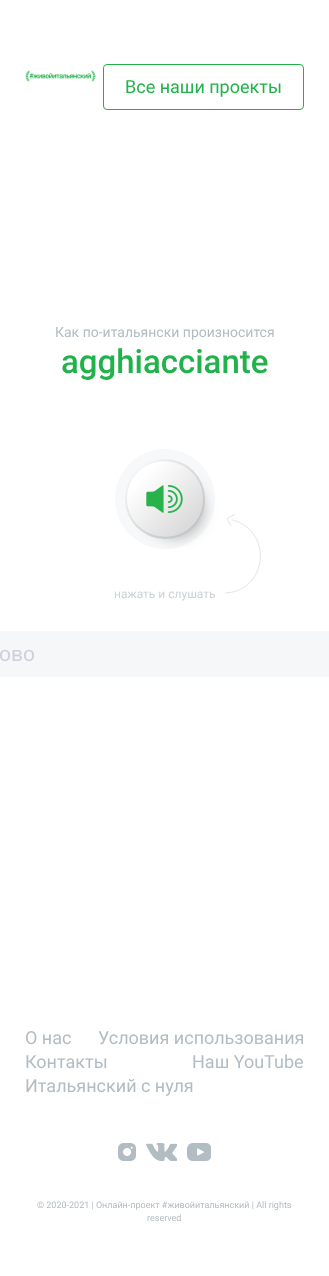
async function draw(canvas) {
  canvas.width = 329
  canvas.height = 1276
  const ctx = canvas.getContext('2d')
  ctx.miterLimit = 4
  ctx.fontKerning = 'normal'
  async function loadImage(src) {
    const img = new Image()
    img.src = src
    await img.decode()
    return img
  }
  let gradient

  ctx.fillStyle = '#fff'
  ctx.fillRect(0, 0, 329, 1276)
  ctx.drawImage(await loadImage('image0.png'), 25, 70, 71, 12)
  ctx.beginPath()
  ctx.roundRect(103.5, 64.5, 200, 45, 3.5)
  ctx.strokeStyle = '#21b24b'
  ctx.stroke()
  ctx.font = '18px Roboto'
  ctx.fillStyle = '#21b24b'
  ctx.fillText('Все наши проекты', 125, 93)
  ctx.font = '14px Roboto'
  ctx.fillStyle = '#b2bcc3'
  ctx.fillText('Как по-итальянски произносится', 55, 337)
  ctx.font = '500 33px Roboto'
  ctx.fillStyle = '#21b24b'
  ctx.fillText('agghiacciante', 61, 373)
  ctx.fillStyle = '#f7f8f9'
  ctx.beginPath()
  ctx.arc(165, 499, 50, 0, 2 * Math.PI)
  ctx.fill()
  ctx.fillStyle = '#00000066'
  ctx.filter = 'blur(8px)'
  ctx.beginPath()
  ctx.roundRect(149, 483, 52, 52, 26)
  ctx.fill()
  ctx.filter = 'none'
  gradient = ctx.createLinearGradient(125, 459, 205, 539)
  gradient.addColorStop(0, '#fefefe')
  gradient.addColorStop(1, '#b7b9bb')
  ctx.fillStyle = gradient
  ctx.beginPath()
  ctx.arc(165, 499, 40, 0, 2 * Math.PI)
  ctx.fill()
  gradient = ctx.createLinearGradient(138, 472, 192, 526)
  gradient.addColorStop(0.09, '#fff')
  gradient.addColorStop(1, '#d9d9d9')
  ctx.fillStyle = gradient
  ctx.beginPath()
  ctx.moveTo(203, 499)
  ctx.bezierCurveTo(203, 462, 154, 447, 133, 478)
  ctx.bezierCurveTo(129, 484, 127, 491, 127, 499)
  ctx.bezierCurveTo(127, 536, 176, 551, 197, 520)
  ctx.bezierCurveTo(201, 514, 203, 507, 203, 499)
  ctx.closePath()
  ctx.fill()
  ctx.drawImage(await loadImage('image1.png'), 146, 485, 37, 28)
  ctx.beginPath()
  ctx.moveTo(232.5, 520)
  ctx.bezierCurveTo(273.5, 530.5, 268, 591, 225.5, 593)
  ctx.strokeStyle = '#cdd2d7'
  ctx.lineWidth = 0.6
  ctx.lineCap = 'round'
  ctx.stroke()
  ctx.beginPath()
  ctx.moveTo(231, 525.5)
  ctx.lineTo(227, 518.5)
  ctx.lineTo(234.5, 514.5)
  ctx.stroke()
  ctx.font = '12px Roboto'
  ctx.fillStyle = '#ccd2d7'
  ctx.fillText('нажать и слушать', 114, 598)
  ctx.fillStyle = '#f5f7f9'
  ctx.fillRect(0, 631, 329, 46)
  ctx.font = '21px Roboto'
  ctx.fillStyle = '#ccd2d7'
  ctx.fillText('ово', -1, 661)
  ctx.font = '18px Roboto'
  ctx.fillStyle = '#b2bcc3'
  ctx.fillText('О нас', 25, 1044)
  ctx.fillText('Условия использования', 98, 1044)
  ctx.fillText('Контакты', 25, 1068)
  ctx.fillText('Наш YouTube', 192, 1068)
  ctx.fillText('Итальянский с нуля', 25, 1092)
  ctx.drawImage(await loadImage('image2.png'), 118, 1143, 18, 18)
  ctx.drawImage(await loadImage('image3.png'), 146, 1143, 31, 18)
  ctx.drawImage(await loadImage('image4.png'), 187, 1143, 24, 18)
  ctx.font = '9px Roboto'
  ctx.fillText('© 2020-2021 | Онлайн-проект #живойитальянский | All rights', 37, 1208)
  ctx.fillText('reserved', 147, 1221)
}

draw(document.querySelector('canvas'))
